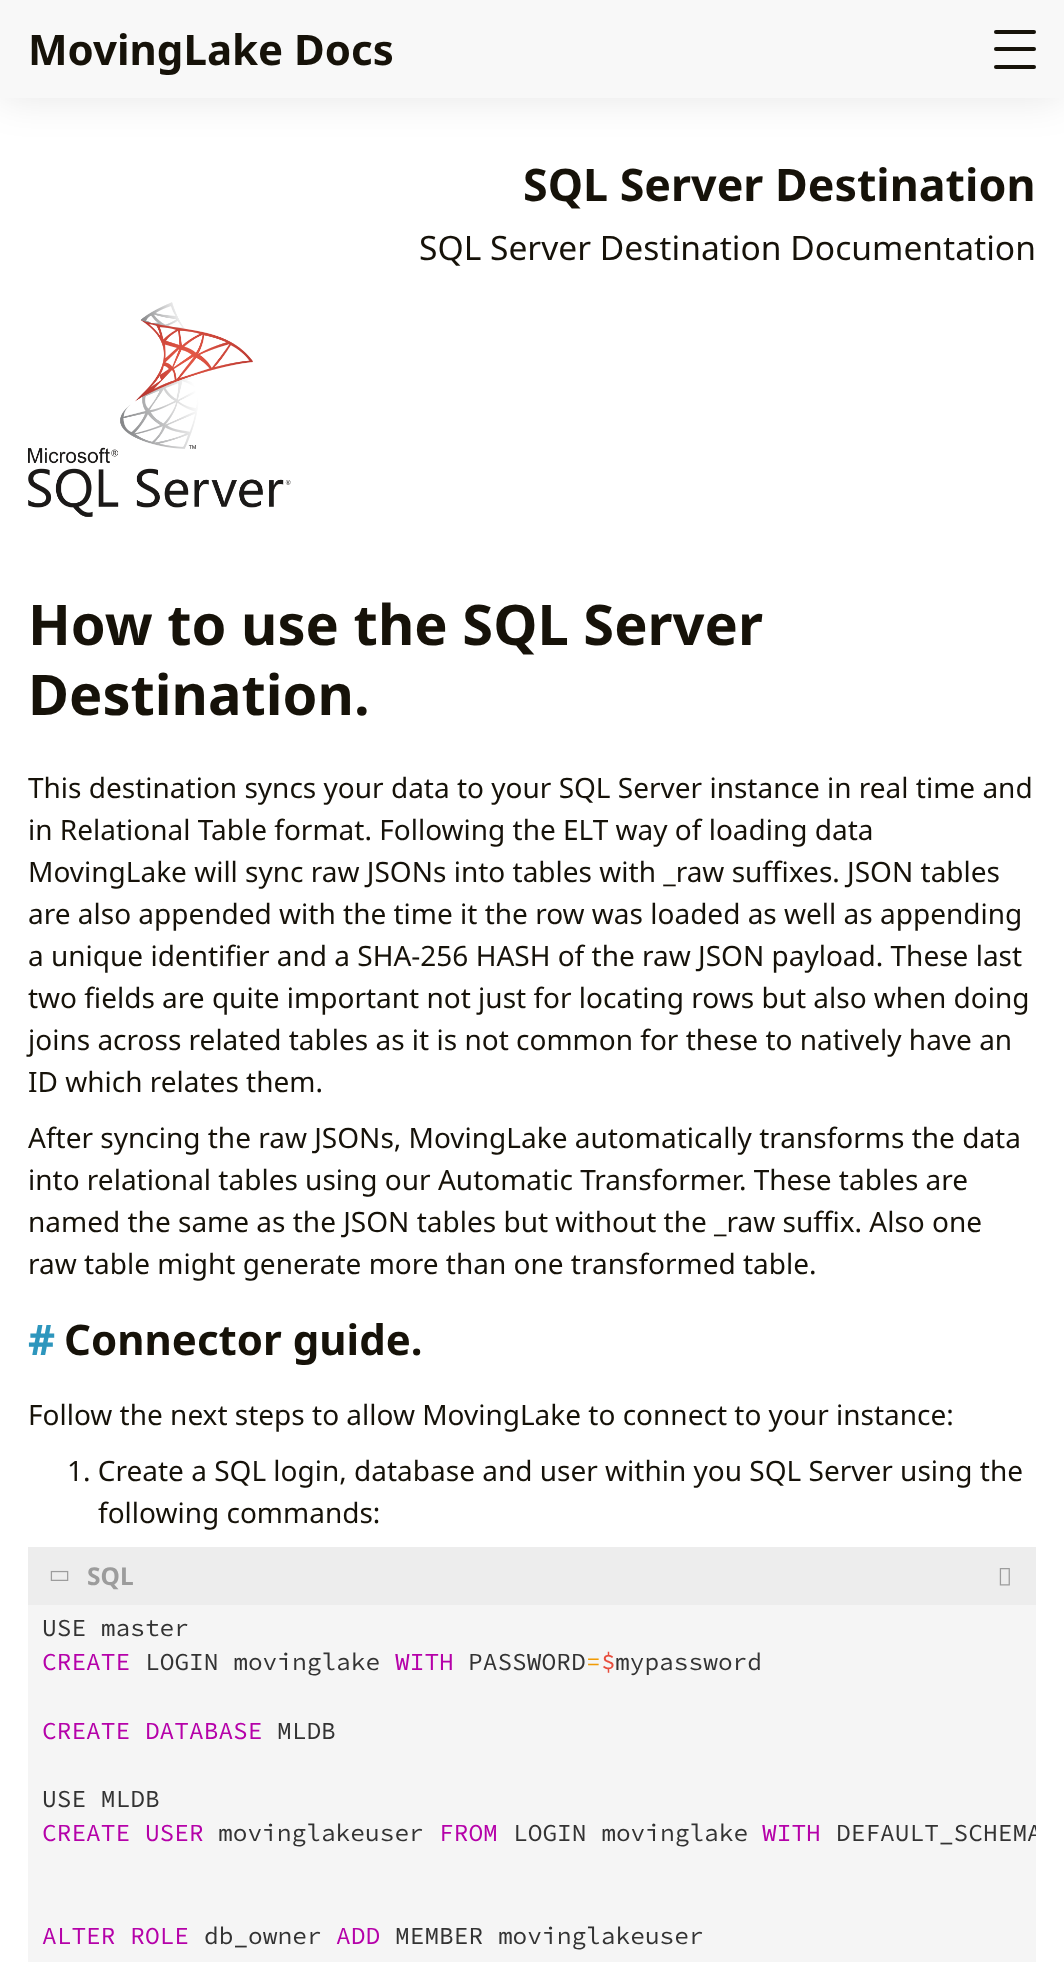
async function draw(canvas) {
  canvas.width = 1064
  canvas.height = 1986
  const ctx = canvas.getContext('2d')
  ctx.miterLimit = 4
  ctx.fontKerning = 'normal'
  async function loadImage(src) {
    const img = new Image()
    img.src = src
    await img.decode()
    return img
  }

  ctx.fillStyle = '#fff'
  ctx.fillRect(0, 0, 1064, 1986)
  ctx.fillStyle = '#0000001a'
  ctx.filter = 'blur(21px)'
  ctx.beginPath()
  ctx.rect(0, 0, 1064, 98)
  ctx.fill()
  ctx.filter = 'none'
  ctx.fillStyle = '#f8f8f8'
  ctx.fillRect(0, 0, 1064, 98)
  ctx.font = 'bold 42px Noto Sans'
  ctx.fillStyle = '#161209'
  ctx.fillText('MovingLake Docs', 28, 65)
  ctx.beginPath()
  ctx.roundRect(994, 30, 42, 4, 2)
  ctx.fill()
  ctx.beginPath()
  ctx.roundRect(994, 47, 42, 4, 2)
  ctx.fill()
  ctx.beginPath()
  ctx.roundRect(994, 65, 42, 4, 2)
  ctx.fill()
  ctx.font = 'bold 44.75px Noto Sans'
  ctx.fillText('SQL Server Destination', 523, 201)
  ctx.font = '33.6px Noto Sans'
  ctx.fillText('SQL Server Destination Documentation', 419, 260)
  ctx.drawImage(await loadImage('image0.png'), 28, 302, 263, 215)
  ctx.font = 'bold 56px Noto Sans'
  ctx.fillText('How to use the SQL Server', 28, 645)
  ctx.fillText('Destination.', 28, 715)
  ctx.font = '28px Noto Sans'
  ctx.fillText('This destination syncs your data to your SQL Server instance in real time and', 28, 798)
  ctx.fillText('in Relational Table format. Following the ELT way of loading data', 28, 840)
  ctx.fillText('MovingLake will sync raw JSONs into tables with _raw suffixes. JSON tables', 28, 882)
  ctx.fillText('are also appended with the time it the row was loaded as well as appending', 28, 924)
  ctx.fillText('a unique identifier and a SHA-256 HASH of the raw JSON payload. These last', 28, 966)
  ctx.fillText('two fields are quite important not just for locating rows but also when doing', 28, 1008)
  ctx.fillText('joins across related tables as it is not common for these to natively have an', 28, 1050)
  ctx.fillText('ID which relates them.', 28, 1092)
  ctx.fillText('After syncing the raw JSONs, MovingLake automatically transforms the data', 28, 1148)
  ctx.fillText('into relational tables using our Automatic Transformer. These tables are', 28, 1190)
  ctx.fillText('named the same as the JSON tables but without the _raw suffix. Also one', 28, 1232)
  ctx.fillText('raw table might generate more than one transformed table.', 28, 1274)
  ctx.font = 'bold 42px Noto Sans'
  ctx.fillStyle = '#2d96bd'
  ctx.fillText('#', 28, 1355)
  ctx.fillStyle = '#161209'
  ctx.fillText('Connector guide.', 64, 1355)
  ctx.font = '28px Noto Sans'
  ctx.fillText('Follow the next steps to allow MovingLake to connect to your instance:', 28, 1425)
  ctx.fillText('1. Create a SQL login, database and user within you SQL Server using the', 67, 1481)
  ctx.fillText('following commands:', 98, 1523)
  ctx.fillStyle = '#ededed'
  ctx.fillRect(28, 1547, 1008, 58)
  ctx.drawImage(await loadImage('image1.png'), 50, 1570, 19, 11)
  ctx.font = 'bold 24.5px Noto Sans'
  ctx.fillStyle = '#9c9c9c'
  ctx.fillText('SQL', 87, 1585)
  ctx.drawImage(await loadImage('image2.png'), 999, 1568, 11, 18)
  ctx.fillStyle = '#f5f5f5'
  ctx.fillRect(28, 1605, 1008, 357)
  ctx.font = '24.5px Source Code Pro'
  ctx.fillStyle = '#333'
  ctx.fillText('USE master', 42, 1636)
  ctx.fillStyle = '#b501a9'
  ctx.fillText('CREATE', 42, 1670)
  ctx.fillStyle = '#333'
  ctx.fillText('LOGIN movinglake', 145, 1670)
  ctx.fillStyle = '#b501a9'
  ctx.fillText('WITH', 395, 1670)
  ctx.fillStyle = '#333'
  ctx.fillText('PASSWORD', 468, 1670)
  ctx.fillStyle = '#f19b04'
  ctx.fillText('=', 586, 1670)
  ctx.fillStyle = '#e74c3c'
  ctx.fillText('$', 601, 1670)
  ctx.fillStyle = '#333'
  ctx.fillText('mypassword', 615, 1670)
  ctx.fillStyle = '#b501a9'
  ctx.fillText('CREATE DATABASE', 42, 1739)
  ctx.fillStyle = '#333'
  ctx.fillText('MLDB', 277, 1739)
  ctx.fillText('USE MLDB', 42, 1807)
  ctx.fillStyle = '#b501a9'
  ctx.fillText('CREATE USER', 42, 1841)
  ctx.fillStyle = '#333'
  ctx.fillText('movinglakeuser', 218, 1841)
  ctx.fillStyle = '#b501a9'
  ctx.fillText('FROM', 439, 1841)
  ctx.fillStyle = '#333'
  ctx.fillText('LOGIN movinglake', 513, 1841)
  ctx.fillStyle = '#b501a9'
  ctx.fillText('WITH', 762, 1841)
  ctx.save()
  ctx.beginPath()
  ctx.rect(28, 1605, 1008, 357)
  ctx.clip()
  ctx.fillStyle = '#333'
  ctx.fillText('DEFAULT_SCHEMA', 836, 1841)
  ctx.restore()
  ctx.fillText('ALTER ROLE', 42, 1944)
  ctx.fillStyle = '#333'
  ctx.fillText('db_owner', 204, 1944)
  ctx.fillStyle = '#b501a9'
  ctx.fillText('ADD', 336, 1944)
  ctx.fillStyle = '#333'
  ctx.fillText('MEMBER movinglakeuser', 395, 1944)
}

draw(document.querySelector('canvas'))
